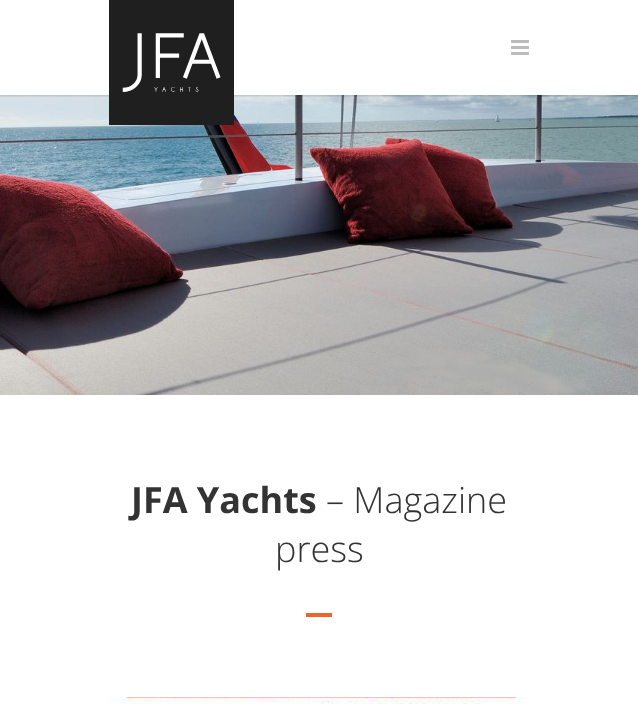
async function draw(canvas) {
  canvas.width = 638
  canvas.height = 704
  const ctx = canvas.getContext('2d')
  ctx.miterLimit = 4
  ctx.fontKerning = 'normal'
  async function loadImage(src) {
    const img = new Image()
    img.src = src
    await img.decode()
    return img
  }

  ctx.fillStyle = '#fff'
  ctx.fillRect(0, 0, 638, 704)
  ctx.drawImage(await loadImage('image2.png'), 0, 95, 638, 300)
  ctx.save()
  ctx.beginPath()
  ctx.rect(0, 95, 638, 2)
  ctx.clip()
  ctx.fillStyle = '#00000029'
  ctx.filter = 'blur(1px)'
  ctx.beginPath()
  ctx.rect(-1, -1, 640, 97)
  ctx.fill()
  ctx.filter = 'none'
  ctx.restore()
  ctx.drawImage(await loadImage('image0.png'), 109, 0, 125, 125)
  ctx.drawImage(await loadImage('image1.png'), 511, 40, 18, 15)
  ctx.font = 'bold 36px Open Sans'
  ctx.fillStyle = '#333'
  ctx.fillText('JFA Yachts', 131, 513)
  ctx.font = '300 36px Open Sans'
  ctx.fillText('– Magazine', 326, 513)
  ctx.fillText('press', 275, 562)
  ctx.fillStyle = '#ec652a'
  ctx.fillRect(306, 613, 26, 4)
  ctx.drawImage(await loadImage('image3.png'), 109, 697, 420, 7)
}

draw(document.querySelector('canvas'))
